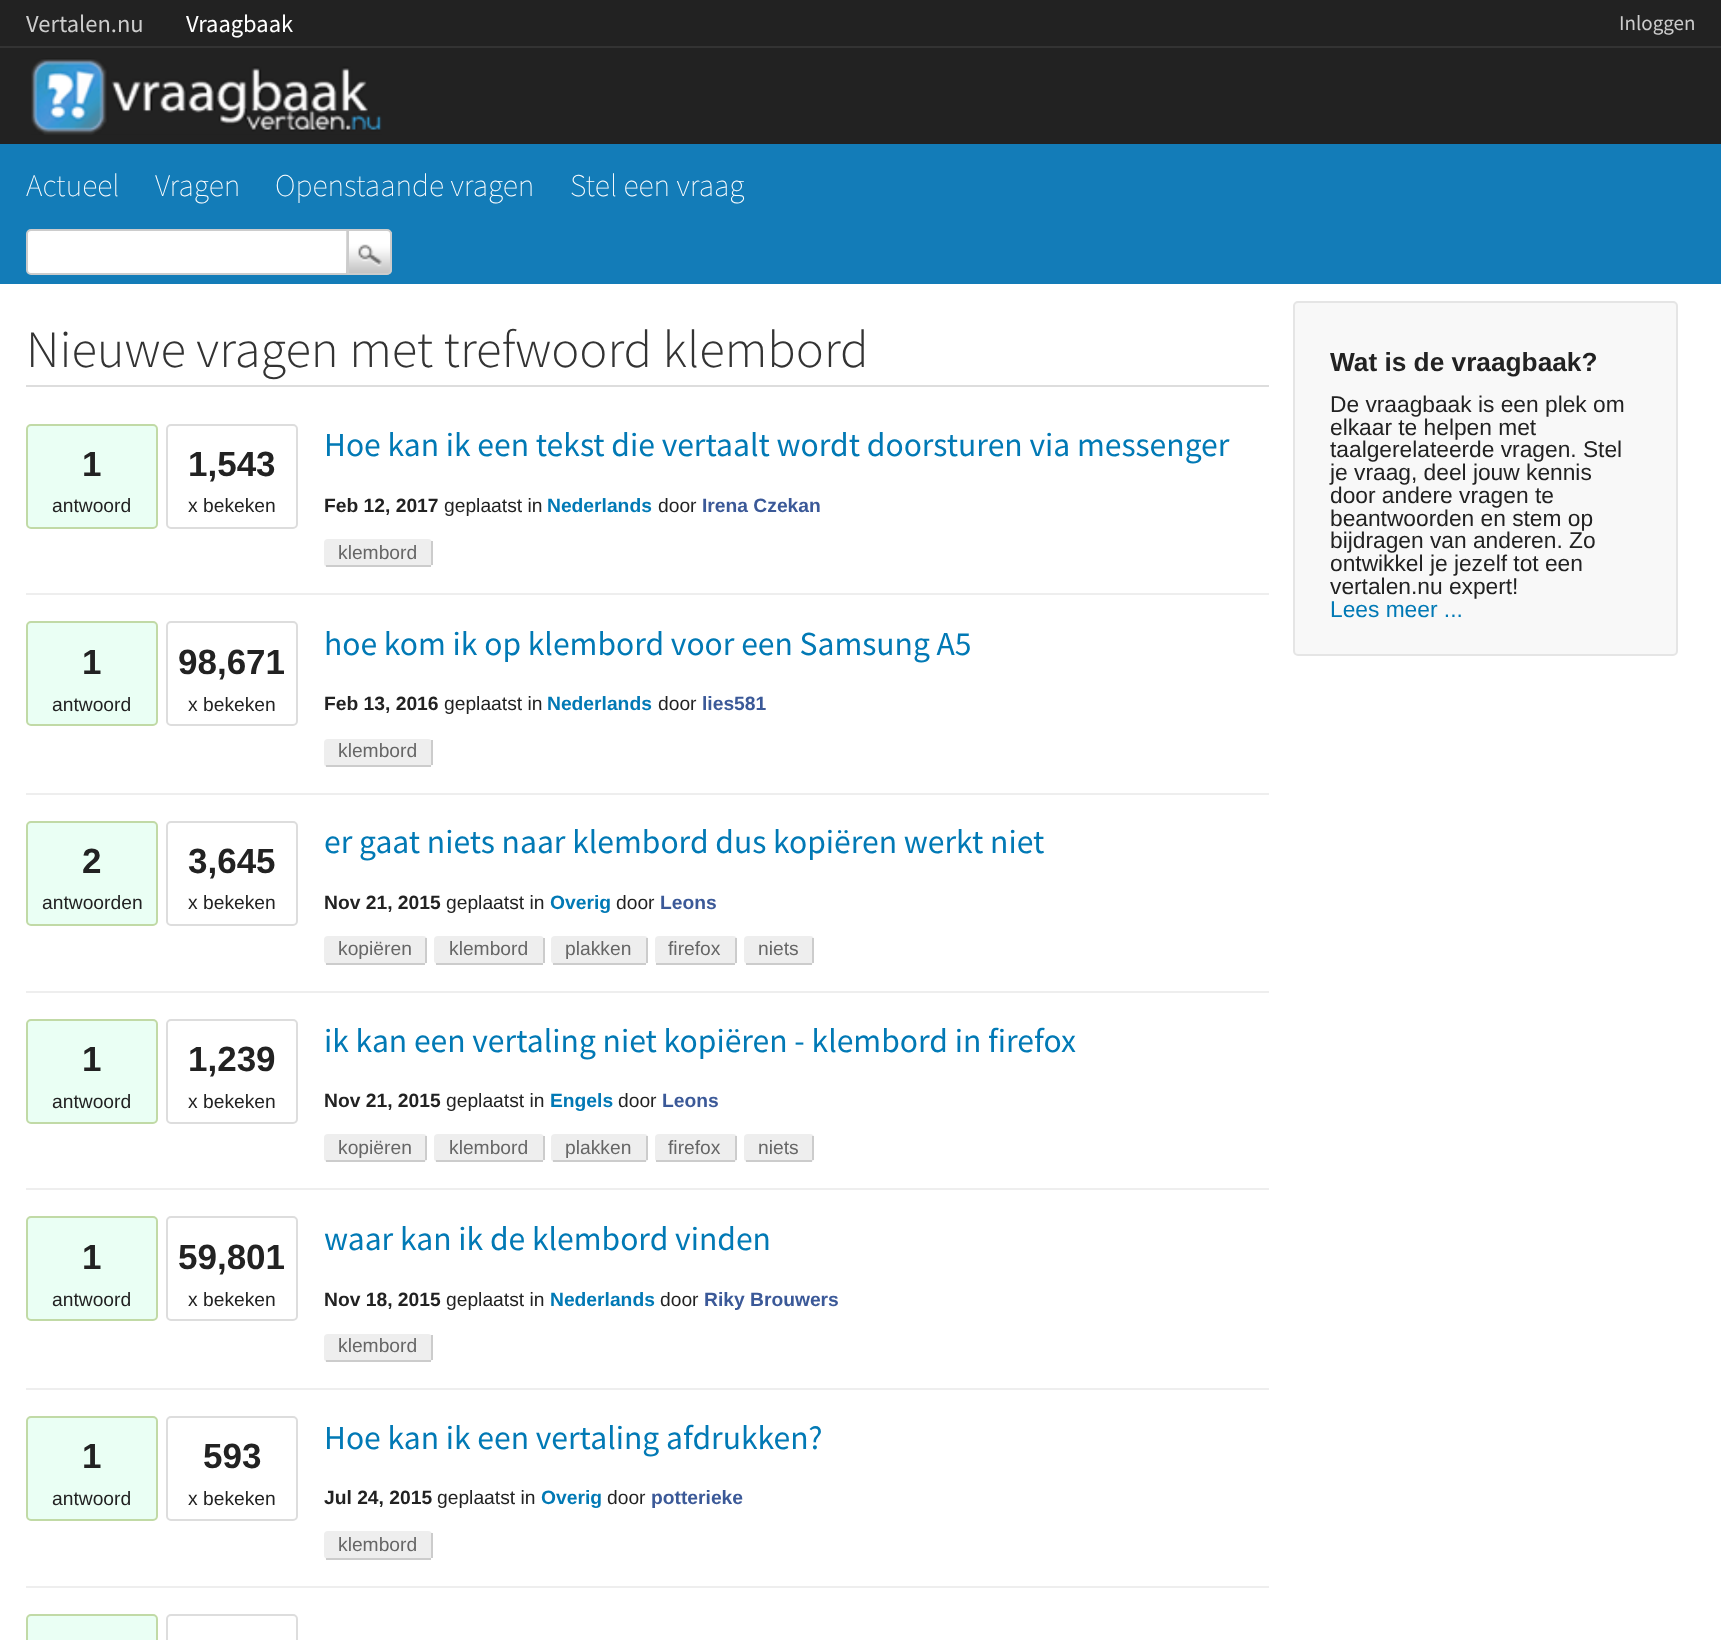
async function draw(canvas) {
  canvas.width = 1721
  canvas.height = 1640
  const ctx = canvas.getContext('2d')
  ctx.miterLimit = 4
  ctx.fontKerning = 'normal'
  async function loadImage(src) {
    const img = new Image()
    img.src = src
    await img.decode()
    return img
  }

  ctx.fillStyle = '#fff'
  ctx.fillRect(0, 0, 1721, 1640)
  ctx.fillStyle = '#222'
  ctx.fillRect(0, 0, 1721, 144)
  ctx.fillStyle = '#333'
  ctx.fillRect(0, 46, 1721, 2)
  ctx.font = '24.5px Source Sans Pro'
  ctx.fillStyle = '#ccc'
  ctx.fillText('Vertalen.nu', 26, 32)
  ctx.fillStyle = '#fff'
  ctx.fillText('Vraagbaak', 186, 32)
  ctx.font = '21px Source Sans Pro'
  ctx.fillStyle = '#ccc'
  ctx.fillText('Inloggen', 1619, 30)
  ctx.drawImage(await loadImage('image0.png'), 31, 58, 351, 77)
  ctx.fillStyle = '#137cb8'
  ctx.fillRect(0, 144, 1721, 140)
  ctx.font = '200 31.5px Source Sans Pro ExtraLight'
  ctx.fillStyle = '#fff'
  ctx.fillText('Actueel', 26, 196)
  ctx.fillText('Vragen', 155, 196)
  ctx.fillText('Openstaande vragen', 275, 196)
  ctx.fillText('Stel een vraag', 570, 196)
  ctx.beginPath()
  ctx.roundRect(27, 230, 320, 44, [4, 0, 0, 4])
  ctx.fill()
  ctx.strokeStyle = '#ccc'
  ctx.lineWidth = 2
  ctx.stroke()
  ctx.drawImage(await loadImage('image1.png'), 346, 231, 46, 44)
  ctx.beginPath()
  ctx.roundRect(348, 230, 43, 44, [0, 4, 4, 0])
  ctx.stroke()
  ctx.fillStyle = '#ddd'
  ctx.fillRect(26, 385, 1243, 2)
  ctx.font = '300 52.5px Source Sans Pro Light'
  ctx.fillStyle = '#333'
  ctx.fillText('Nieuwe vragen met trefwoord klembord', 26, 367)
  ctx.fillStyle = '#eee'
  ctx.fillRect(26, 593, 1243, 2)
  ctx.fillStyle = '#eafff4'
  ctx.beginPath()
  ctx.roundRect(27, 425, 130, 103, 4)
  ctx.fill()
  ctx.strokeStyle = '#c1daa6'
  ctx.stroke()
  ctx.font = 'bold 35px Liberation Sans'
  ctx.fillStyle = '#222'
  ctx.fillText('1', 82, 476)
  ctx.font = '19.25px Liberation Sans'
  ctx.fillText('antwoord', 52, 512)
  ctx.beginPath()
  ctx.roundRect(167, 425, 130, 103, 4)
  ctx.strokeStyle = '#ddd'
  ctx.stroke()
  ctx.font = 'bold 35px Liberation Sans'
  ctx.fillText('1,543', 188, 476)
  ctx.font = '19.25px Liberation Sans'
  ctx.fillText('x bekeken', 188, 512)
  ctx.font = '33.6px Source Sans Pro'
  ctx.fillStyle = '#0179b5'
  ctx.fillText('Hoe kan ik een tekst die vertaalt wordt doorsturen via messenger', 324, 456)
  ctx.font = 'bold 19.25px Liberation Sans'
  ctx.fillStyle = '#222'
  ctx.fillText('Feb 12, 2017', 324, 512)
  ctx.font = '19.25px Liberation Sans'
  ctx.fillText('geplaatst in', 444, 512)
  ctx.font = 'bold 19.25px Liberation Sans'
  ctx.fillStyle = '#0179b5'
  ctx.fillText('Nederlands', 547, 512)
  ctx.font = '19.25px Liberation Sans'
  ctx.fillStyle = '#222'
  ctx.fillText('door', 658, 512)
  ctx.font = 'bold 19.25px Liberation Sans'
  ctx.fillStyle = '#3b5998'
  ctx.fillText('Irena Czekan', 702, 512)
  ctx.fillStyle = '#eee'
  ctx.beginPath()
  ctx.roundRect(324, 539, 108, 28, 4)
  ctx.fill()
  ctx.fillStyle = '#ccc'
  ctx.fillRect(431, 541, 2, 24)
  ctx.fillRect(326, 565, 105, 2)
  ctx.font = '19.25px Liberation Sans'
  ctx.fillStyle = '#666'
  ctx.fillText('klembord', 338, 559)
  ctx.fillStyle = '#eee'
  ctx.fillRect(26, 793, 1243, 2)
  ctx.fillStyle = '#eafff4'
  ctx.beginPath()
  ctx.roundRect(27, 622, 130, 103, 4)
  ctx.fill()
  ctx.strokeStyle = '#c1daa6'
  ctx.stroke()
  ctx.font = 'bold 35px Liberation Sans'
  ctx.fillStyle = '#222'
  ctx.fillText('1', 82, 674)
  ctx.font = '19.25px Liberation Sans'
  ctx.fillText('antwoord', 52, 711)
  ctx.beginPath()
  ctx.roundRect(167, 622, 130, 103, 4)
  ctx.strokeStyle = '#ddd'
  ctx.stroke()
  ctx.font = 'bold 35px Liberation Sans'
  ctx.fillText('98,671', 178, 674)
  ctx.font = '19.25px Liberation Sans'
  ctx.fillText('x bekeken', 188, 711)
  ctx.font = '33.6px Source Sans Pro'
  ctx.fillStyle = '#0179b5'
  ctx.fillText('hoe kom ik op klembord voor een Samsung A5', 324, 655)
  ctx.font = 'bold 19.25px Liberation Sans'
  ctx.fillStyle = '#222'
  ctx.fillText('Feb 13, 2016', 324, 710)
  ctx.font = '19.25px Liberation Sans'
  ctx.fillText('geplaatst in', 444, 710)
  ctx.font = 'bold 19.25px Liberation Sans'
  ctx.fillStyle = '#0179b5'
  ctx.fillText('Nederlands', 547, 710)
  ctx.font = '19.25px Liberation Sans'
  ctx.fillStyle = '#222'
  ctx.fillText('door', 658, 710)
  ctx.font = 'bold 19.25px Liberation Sans'
  ctx.fillStyle = '#3b5998'
  ctx.fillText('lies581', 702, 710)
  ctx.fillStyle = '#eee'
  ctx.beginPath()
  ctx.roundRect(324, 739, 108, 28, 4)
  ctx.fill()
  ctx.fillStyle = '#ccc'
  ctx.fillRect(431, 740, 2, 25)
  ctx.fillRect(326, 765, 105, 2)
  ctx.font = '19.25px Liberation Sans'
  ctx.fillStyle = '#666'
  ctx.fillText('klembord', 338, 757)
  ctx.fillStyle = '#eee'
  ctx.fillRect(26, 991, 1243, 2)
  ctx.fillStyle = '#eafff4'
  ctx.beginPath()
  ctx.roundRect(27, 822, 130, 103, 4)
  ctx.fill()
  ctx.strokeStyle = '#c1daa6'
  ctx.stroke()
  ctx.font = 'bold 35px Liberation Sans'
  ctx.fillStyle = '#222'
  ctx.fillText('2', 82, 873)
  ctx.font = '19.25px Liberation Sans'
  ctx.fillText('antwoorden', 42, 909)
  ctx.beginPath()
  ctx.roundRect(167, 822, 130, 103, 4)
  ctx.strokeStyle = '#ddd'
  ctx.stroke()
  ctx.font = 'bold 35px Liberation Sans'
  ctx.fillText('3,645', 188, 873)
  ctx.font = '19.25px Liberation Sans'
  ctx.fillText('x bekeken', 188, 909)
  ctx.font = '33.6px Source Sans Pro'
  ctx.fillStyle = '#0179b5'
  ctx.fillText('er gaat niets naar klembord dus kopiëren werkt niet', 324, 853)
  ctx.font = 'bold 19.25px Liberation Sans'
  ctx.fillStyle = '#222'
  ctx.fillText('Nov 21, 2015', 324, 909)
  ctx.font = '19.25px Liberation Sans'
  ctx.fillText('geplaatst in', 446, 909)
  ctx.font = 'bold 19.25px Liberation Sans'
  ctx.fillStyle = '#0179b5'
  ctx.fillText('Overig', 550, 909)
  ctx.font = '19.25px Liberation Sans'
  ctx.fillStyle = '#222'
  ctx.fillText('door', 616, 909)
  ctx.font = 'bold 19.25px Liberation Sans'
  ctx.fillStyle = '#3b5998'
  ctx.fillText('Leons', 660, 909)
  ctx.fillStyle = '#eee'
  ctx.beginPath()
  ctx.roundRect(324, 936, 103, 28, 4)
  ctx.fill()
  ctx.fillStyle = '#ccc'
  ctx.fillRect(425, 938, 2, 25)
  ctx.fillRect(326, 963, 99, 2)
  ctx.font = '19.25px Liberation Sans'
  ctx.fillStyle = '#666'
  ctx.fillText('kopiëren', 338, 955)
  ctx.fillStyle = '#eee'
  ctx.beginPath()
  ctx.roundRect(434, 936, 110, 28, 4)
  ctx.fill()
  ctx.fillStyle = '#ccc'
  ctx.fillRect(543, 938, 2, 25)
  ctx.fillRect(436, 963, 107, 2)
  ctx.fillStyle = '#666'
  ctx.fillText('klembord', 449, 955)
  ctx.fillStyle = '#eee'
  ctx.beginPath()
  ctx.roundRect(551, 936, 97, 28, 4)
  ctx.fill()
  ctx.fillStyle = '#ccc'
  ctx.fillRect(646, 938, 2, 25)
  ctx.fillRect(553, 963, 93, 2)
  ctx.fillStyle = '#666'
  ctx.fillText('plakken', 565, 955)
  ctx.fillStyle = '#eee'
  ctx.beginPath()
  ctx.roundRect(655, 936, 82, 28, 4)
  ctx.fill()
  ctx.fillStyle = '#ccc'
  ctx.fillRect(735, 938, 2, 25)
  ctx.fillRect(656, 963, 79, 2)
  ctx.fillStyle = '#666'
  ctx.fillText('firefox', 668, 955)
  ctx.fillStyle = '#eee'
  ctx.beginPath()
  ctx.roundRect(744, 936, 70, 28, 4)
  ctx.fill()
  ctx.fillStyle = '#ccc'
  ctx.fillRect(812, 938, 2, 25)
  ctx.fillRect(746, 963, 66, 2)
  ctx.fillStyle = '#666'
  ctx.fillText('niets', 758, 955)
  ctx.fillStyle = '#eee'
  ctx.fillRect(26, 1188, 1243, 2)
  ctx.fillStyle = '#eafff4'
  ctx.beginPath()
  ctx.roundRect(27, 1020, 130, 103, 4)
  ctx.fill()
  ctx.strokeStyle = '#c1daa6'
  ctx.stroke()
  ctx.font = 'bold 35px Liberation Sans'
  ctx.fillStyle = '#222'
  ctx.fillText('1', 82, 1071)
  ctx.font = '19.25px Liberation Sans'
  ctx.fillText('antwoord', 52, 1108)
  ctx.beginPath()
  ctx.roundRect(167, 1020, 130, 103, 4)
  ctx.strokeStyle = '#ddd'
  ctx.stroke()
  ctx.font = 'bold 35px Liberation Sans'
  ctx.fillText('1,239', 188, 1071)
  ctx.font = '19.25px Liberation Sans'
  ctx.fillText('x bekeken', 188, 1108)
  ctx.font = '33.6px Source Sans Pro'
  ctx.fillStyle = '#0179b5'
  ctx.fillText('ik kan een vertaling niet kopiëren - klembord in firefox', 324, 1052)
  ctx.font = 'bold 19.25px Liberation Sans'
  ctx.fillStyle = '#222'
  ctx.fillText('Nov 21, 2015', 324, 1107)
  ctx.font = '19.25px Liberation Sans'
  ctx.fillText('geplaatst in', 446, 1107)
  ctx.font = 'bold 19.25px Liberation Sans'
  ctx.fillStyle = '#0179b5'
  ctx.fillText('Engels', 550, 1107)
  ctx.font = '19.25px Liberation Sans'
  ctx.fillStyle = '#222'
  ctx.fillText('door', 618, 1107)
  ctx.font = 'bold 19.25px Liberation Sans'
  ctx.fillStyle = '#3b5998'
  ctx.fillText('Leons', 662, 1107)
  ctx.fillStyle = '#eee'
  ctx.beginPath()
  ctx.roundRect(324, 1134, 103, 28, 4)
  ctx.fill()
  ctx.fillStyle = '#ccc'
  ctx.fillRect(425, 1136, 2, 24)
  ctx.fillRect(326, 1160, 99, 2)
  ctx.font = '19.25px Liberation Sans'
  ctx.fillStyle = '#666'
  ctx.fillText('kopiëren', 338, 1154)
  ctx.fillStyle = '#eee'
  ctx.beginPath()
  ctx.roundRect(434, 1134, 110, 28, 4)
  ctx.fill()
  ctx.fillStyle = '#ccc'
  ctx.fillRect(543, 1136, 2, 24)
  ctx.fillRect(436, 1160, 107, 2)
  ctx.fillStyle = '#666'
  ctx.fillText('klembord', 449, 1154)
  ctx.fillStyle = '#eee'
  ctx.beginPath()
  ctx.roundRect(551, 1134, 97, 28, 4)
  ctx.fill()
  ctx.fillStyle = '#ccc'
  ctx.fillRect(646, 1136, 2, 24)
  ctx.fillRect(553, 1160, 93, 2)
  ctx.fillStyle = '#666'
  ctx.fillText('plakken', 565, 1154)
  ctx.fillStyle = '#eee'
  ctx.beginPath()
  ctx.roundRect(655, 1134, 82, 28, 4)
  ctx.fill()
  ctx.fillStyle = '#ccc'
  ctx.fillRect(735, 1136, 2, 24)
  ctx.fillRect(656, 1160, 79, 2)
  ctx.fillStyle = '#666'
  ctx.fillText('firefox', 668, 1154)
  ctx.fillStyle = '#eee'
  ctx.beginPath()
  ctx.roundRect(744, 1134, 70, 28, 4)
  ctx.fill()
  ctx.fillStyle = '#ccc'
  ctx.fillRect(812, 1136, 2, 24)
  ctx.fillRect(746, 1160, 66, 2)
  ctx.fillStyle = '#666'
  ctx.fillText('niets', 758, 1154)
  ctx.fillStyle = '#eee'
  ctx.fillRect(26, 1388, 1243, 2)
  ctx.fillStyle = '#eafff4'
  ctx.beginPath()
  ctx.roundRect(27, 1217, 130, 103, 4)
  ctx.fill()
  ctx.strokeStyle = '#c1daa6'
  ctx.stroke()
  ctx.font = 'bold 35px Liberation Sans'
  ctx.fillStyle = '#222'
  ctx.fillText('1', 82, 1269)
  ctx.font = '19.25px Liberation Sans'
  ctx.fillText('antwoord', 52, 1306)
  ctx.beginPath()
  ctx.roundRect(167, 1217, 130, 103, 4)
  ctx.strokeStyle = '#ddd'
  ctx.stroke()
  ctx.font = 'bold 35px Liberation Sans'
  ctx.fillText('59,801', 178, 1269)
  ctx.font = '19.25px Liberation Sans'
  ctx.fillText('x bekeken', 188, 1306)
  ctx.font = '33.6px Source Sans Pro'
  ctx.fillStyle = '#0179b5'
  ctx.fillText('waar kan ik de klembord vinden', 324, 1250)
  ctx.font = 'bold 19.25px Liberation Sans'
  ctx.fillStyle = '#222'
  ctx.fillText('Nov 18, 2015', 324, 1306)
  ctx.font = '19.25px Liberation Sans'
  ctx.fillText('geplaatst in', 446, 1306)
  ctx.font = 'bold 19.25px Liberation Sans'
  ctx.fillStyle = '#0179b5'
  ctx.fillText('Nederlands', 550, 1306)
  ctx.font = '19.25px Liberation Sans'
  ctx.fillStyle = '#222'
  ctx.fillText('door', 660, 1306)
  ctx.font = 'bold 19.25px Liberation Sans'
  ctx.fillStyle = '#3b5998'
  ctx.fillText('Riky Brouwers', 704, 1306)
  ctx.fillStyle = '#eee'
  ctx.beginPath()
  ctx.roundRect(324, 1334, 108, 28, 4)
  ctx.fill()
  ctx.fillStyle = '#ccc'
  ctx.fillRect(431, 1335, 2, 25)
  ctx.fillRect(326, 1360, 105, 2)
  ctx.font = '19.25px Liberation Sans'
  ctx.fillStyle = '#666'
  ctx.fillText('klembord', 338, 1352)
  ctx.fillStyle = '#eee'
  ctx.fillRect(26, 1586, 1243, 2)
  ctx.fillStyle = '#eafff4'
  ctx.beginPath()
  ctx.roundRect(27, 1417, 130, 103, 4)
  ctx.fill()
  ctx.strokeStyle = '#c1daa6'
  ctx.stroke()
  ctx.font = 'bold 35px Liberation Sans'
  ctx.fillStyle = '#222'
  ctx.fillText('1', 82, 1468)
  ctx.font = '19.25px Liberation Sans'
  ctx.fillText('antwoord', 52, 1505)
  ctx.beginPath()
  ctx.roundRect(167, 1417, 130, 103, 4)
  ctx.strokeStyle = '#ddd'
  ctx.stroke()
  ctx.font = 'bold 35px Liberation Sans'
  ctx.fillText('593', 203, 1468)
  ctx.font = '19.25px Liberation Sans'
  ctx.fillText('x bekeken', 188, 1505)
  ctx.font = '33.6px Source Sans Pro'
  ctx.fillStyle = '#0179b5'
  ctx.fillText('Hoe kan ik een vertaling afdrukken?', 324, 1449)
  ctx.font = 'bold 19.25px Liberation Sans'
  ctx.fillStyle = '#222'
  ctx.fillText('Jul 24, 2015', 324, 1504)
  ctx.font = '19.25px Liberation Sans'
  ctx.fillText('geplaatst in', 437, 1504)
  ctx.font = 'bold 19.25px Liberation Sans'
  ctx.fillStyle = '#0179b5'
  ctx.fillText('Overig', 541, 1504)
  ctx.font = '19.25px Liberation Sans'
  ctx.fillStyle = '#222'
  ctx.fillText('door', 607, 1504)
  ctx.font = 'bold 19.25px Liberation Sans'
  ctx.fillStyle = '#3b5998'
  ctx.fillText('potterieke', 651, 1504)
  ctx.fillStyle = '#eee'
  ctx.beginPath()
  ctx.roundRect(324, 1531, 108, 28, 4)
  ctx.fill()
  ctx.fillStyle = '#ccc'
  ctx.fillRect(431, 1533, 2, 25)
  ctx.fillRect(326, 1558, 105, 2)
  ctx.font = '19.25px Liberation Sans'
  ctx.fillStyle = '#666'
  ctx.fillText('klembord', 338, 1551)
  ctx.fillStyle = '#eafff4'
  ctx.beginPath()
  ctx.roundRect(27, 1615, 130, 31, 4)
  ctx.fill()
  ctx.strokeStyle = '#c1daa6'
  ctx.stroke()
  ctx.beginPath()
  ctx.roundRect(167, 1615, 130, 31, 4)
  ctx.strokeStyle = '#ddd'
  ctx.stroke()
  ctx.fillStyle = '#f8f8f8'
  ctx.beginPath()
  ctx.roundRect(1294, 302, 383, 353, 4)
  ctx.fill()
  ctx.strokeStyle = '#e5e5e5'
  ctx.stroke()
  ctx.font = 'bold 26.25px Liberation Sans'
  ctx.fillStyle = '#222'
  ctx.fillText('Wat is de vraagbaak?', 1330, 371)
  ctx.font = '22.75px Liberation Sans'
  ctx.fillText('De vraagbaak is een plek om', 1330, 412)
  ctx.fillText('elkaar te helpen met', 1330, 435)
  ctx.fillText('taalgerelateerde vragen. Stel', 1330, 457)
  ctx.fillText('je vraag, deel jouw kennis', 1330, 480)
  ctx.fillText('door andere vragen te', 1330, 503)
  ctx.fillText('beantwoorden en stem op', 1330, 526)
  ctx.fillText('bijdragen van anderen. Zo', 1330, 548)
  ctx.fillText('ontwikkel je jezelf tot een', 1330, 571)
  ctx.fillText('vertalen.nu expert!', 1330, 594)
  ctx.fillStyle = '#0179b5'
  ctx.fillText('Lees meer ...', 1330, 617)
}

draw(document.querySelector('canvas'))
